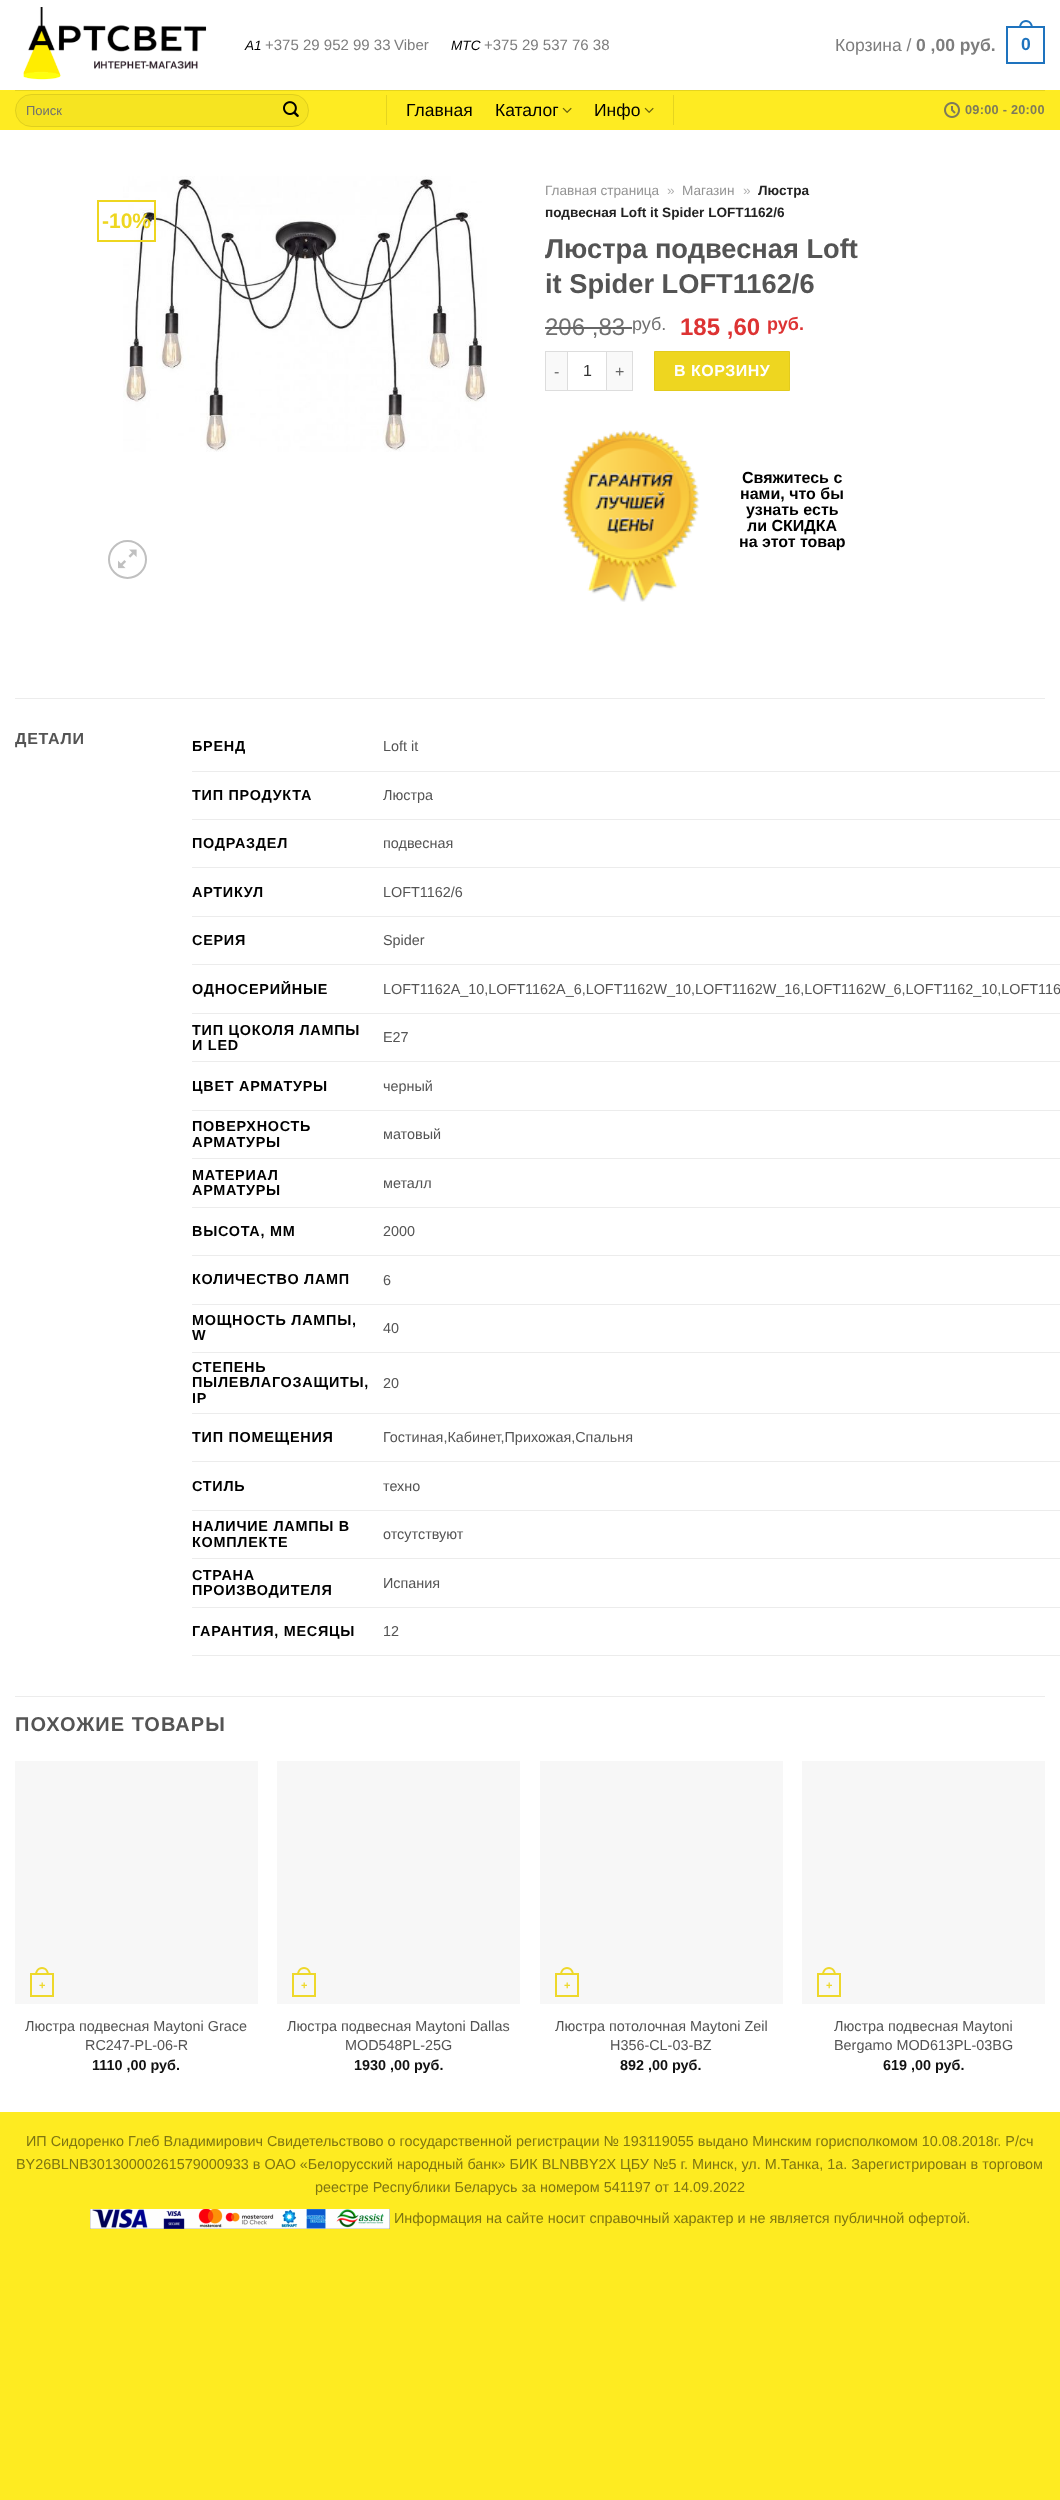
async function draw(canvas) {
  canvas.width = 1060
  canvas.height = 2500
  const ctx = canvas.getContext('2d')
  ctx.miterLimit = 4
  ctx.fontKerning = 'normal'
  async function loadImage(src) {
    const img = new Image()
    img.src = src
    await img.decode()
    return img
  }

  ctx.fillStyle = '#feeb21'
  ctx.fillRect(0, 0, 1060, 2500)
  ctx.fillStyle = '#fff'
  ctx.fillRect(0, 0, 1060, 2112)
  ctx.drawImage(await loadImage('image0.png'), 23, 7, 184, 73)
  ctx.font = 'italic 13.6px Liberation Sans'
  ctx.fillStyle = '#000'
  ctx.fillText('A1', 245, 50)
  ctx.font = '15px Liberation Sans'
  ctx.fillStyle = '#7d7d7d'
  ctx.fillText('+375 29 952 99 33', 265, 50)
  ctx.fillText('Viber', 394, 50)
  ctx.font = 'italic 13.6px Liberation Sans'
  ctx.fillStyle = '#000'
  ctx.fillText('МТС', 451, 50)
  ctx.font = '15px Liberation Sans'
  ctx.fillStyle = '#7d7d7d'
  ctx.fillText('+375 29 537 76 38', 484, 50)
  ctx.font = '17.5px Liberation Sans'
  ctx.fillText('Корзина /', 835, 51)
  ctx.font = 'bold 17.5px Liberation Sans'
  ctx.fillText('0 ,00 руб.', 916, 51)
  ctx.strokeStyle = '#1e73be'
  ctx.lineWidth = 2
  ctx.strokeRect(1007, 27, 37, 36)
  ctx.fillStyle = '#1e73be'
  ctx.beginPath()
  ctx.moveTo(1026, 20)
  ctx.bezierCurveTo(1030.5, 20, 1033, 24, 1033, 28)
  ctx.lineTo(1019, 28)
  ctx.bezierCurveTo(1019, 24, 1021.5, 20, 1026, 20)
  ctx.closePath()
  ctx.moveTo(1026, 22)
  ctx.bezierCurveTo(1029.5, 22, 1031, 25, 1031, 28)
  ctx.lineTo(1021, 28)
  ctx.bezierCurveTo(1021, 25, 1022.5, 22, 1026, 22)
  ctx.closePath()
  ctx.fill('evenodd')
  ctx.fillText('0', 1021, 50)
  ctx.fillStyle = '#feeb22'
  ctx.fillRect(0, 90, 1060, 40)
  ctx.fillStyle = '#e5d41f'
  ctx.fillRect(15, 90, 1030, 1)
  ctx.fillStyle = '#f6e421'
  ctx.beginPath()
  ctx.roundRect(15, 94, 294, 33, 16.5)
  ctx.fill()
  ctx.beginPath()
  ctx.roundRect(15.5, 94.5, 293, 32, 16)
  ctx.strokeStyle = '#00000017'
  ctx.lineWidth = 1
  ctx.stroke()
  ctx.font = '13px Liberation Sans'
  ctx.fillStyle = '#707070'
  ctx.fillText('Поиск', 26, 115)
  ctx.drawImage(await loadImage('image1.png'), 283, 101, 16, 16)
  ctx.fillStyle = '#e5d41f'
  ctx.fillRect(386, 95, 1, 30)
  ctx.font = '17.5px Liberation Sans'
  ctx.fillStyle = '#000'
  ctx.fillText('Главная', 406, 116)
  ctx.fillText('Каталог', 495, 116)
  ctx.drawImage(await loadImage('image2.png'), 562, 107, 10, 6)
  ctx.fillText('Инфо', 594, 116)
  ctx.drawImage(await loadImage('image2.png'), 644, 107, 10, 6)
  ctx.fillStyle = '#e5d41f'
  ctx.fillRect(673, 95, 1, 30)
  ctx.drawImage(await loadImage('image3.png'), 944, 102, 16, 16)
  ctx.letterSpacing = '0.25px'
  ctx.font = 'bold 12.75px Liberation Sans'
  ctx.fillStyle = '#7d7a5c'
  ctx.fillText('09:00 - 20:00', 965, 114)
  ctx.drawImage(await loadImage('image4.png'), 123, 176, 364, 276)
  ctx.strokeStyle = '#eed620'
  ctx.lineWidth = 2
  ctx.strokeRect(98, 201, 57, 40)
  ctx.letterSpacing = '0px'
  ctx.font = 'bold 21px Liberation Sans'
  ctx.fillStyle = '#eed620'
  ctx.fillText('-10%', 102, 228)
  ctx.beginPath()
  ctx.arc(127.5, 559.5, 18.5, 0, 2 * Math.PI)
  ctx.strokeStyle = '#c0c0c0'
  ctx.stroke()
  ctx.drawImage(await loadImage('image5.png'), 118, 549, 19, 20)
  ctx.font = '13.6px Liberation Sans'
  ctx.fillStyle = '#949494'
  ctx.fillText('Главная страница', 545, 195)
  ctx.fillStyle = '#b2b2b2'
  ctx.fillText('»', 667, 195)
  ctx.fillStyle = '#949494'
  ctx.fillText('Магазин', 682, 195)
  ctx.fillStyle = '#b2b2b2'
  ctx.fillText('»', 743, 195)
  ctx.font = 'bold 13.6px Liberation Sans'
  ctx.fillStyle = '#222'
  ctx.fillText('Люстра', 758, 195)
  ctx.fillText('подвесная Loft it Spider LOFT1162/6', 545, 217)
  ctx.font = 'bold 27.25px Liberation Sans'
  ctx.fillStyle = '#545454'
  ctx.fillText('Люстра подвесная Loft', 545, 258)
  ctx.fillText('it Spider LOFT1162/6', 545, 293)
  ctx.font = '24px Liberation Sans'
  ctx.fillStyle = '#707070'
  ctx.fillText('206 ,83', 545, 335)
  ctx.fillStyle = '#666'
  ctx.fillRect(545, 327, 87, 2)
  ctx.font = '18px Liberation Sans'
  ctx.fillStyle = '#707070'
  ctx.fillText('руб.', 632, 330)
  ctx.font = 'bold 24px Liberation Sans'
  ctx.fillStyle = '#d33'
  ctx.fillText('185 ,60', 680, 335)
  ctx.font = 'bold 18px Liberation Sans'
  ctx.fillText('руб.', 767, 330)
  ctx.fillStyle = '#f9f9f9'
  ctx.fillRect(546, 352, 21, 38)
  ctx.fillStyle = '#ddd'
  ctx.fillRect(545, 351, 22, 1)
  ctx.fillRect(545, 390, 22, 1)
  ctx.fillRect(545, 351, 1, 40)
  ctx.font = '16px Liberation Sans'
  ctx.fillStyle = '#666'
  ctx.fillText('-', 554, 377)
  ctx.strokeStyle = '#ddd'
  ctx.lineWidth = 1
  ctx.strokeRect(567.5, 351.5, 39, 39)
  ctx.fillStyle = '#333'
  ctx.fillText('1', 583, 376)
  ctx.fillStyle = '#f9f9f9'
  ctx.fillRect(607, 352, 25, 38)
  ctx.fillStyle = '#ddd'
  ctx.fillRect(607, 351, 26, 1)
  ctx.fillRect(632, 351, 1, 40)
  ctx.fillRect(607, 390, 26, 1)
  ctx.fillStyle = '#666'
  ctx.fillText('+', 615, 377)
  ctx.fillStyle = '#eed620'
  ctx.beginPath()
  ctx.rect(654.5, 351.5, 135, 39)
  ctx.fill()
  ctx.strokeStyle = '#e2cb1e'
  ctx.stroke()
  ctx.letterSpacing = '0.5px'
  ctx.font = 'bold 16px Liberation Sans'
  ctx.fillStyle = '#fff'
  ctx.fillText('В КОРЗИНУ', 674, 376)
  ctx.drawImage(await loadImage('image6.png'), 562, 430, 138, 172)
  ctx.letterSpacing = '0px'
  ctx.fillStyle = '#000'
  ctx.fillText('Свяжитесь с', 742, 483)
  ctx.fillText('нами, что бы', 740, 499)
  ctx.fillText('узнать есть', 746, 515)
  ctx.fillText('ли СКИДКА', 747, 531)
  ctx.fillText('на этот товар', 739, 547)
  ctx.fillStyle = '#ececec'
  ctx.fillRect(15, 698, 1030, 1)
  ctx.letterSpacing = '0.75px'
  ctx.fillStyle = '#545454'
  ctx.fillText('ДЕТАЛИ', 15, 744)
  ctx.fillStyle = '#ececec'
  ctx.fillRect(192, 771, 868, 1)
  ctx.font = 'bold 14.4px Liberation Sans'
  ctx.fillStyle = '#000'
  ctx.fillText('БРЕНД', 192, 751)
  ctx.letterSpacing = '0px'
  ctx.font = '14.4px Liberation Sans'
  ctx.fillStyle = '#545454'
  ctx.fillText('Loft it', 383, 751)
  ctx.fillStyle = '#ececec'
  ctx.fillRect(192, 819, 868, 1)
  ctx.letterSpacing = '0.75px'
  ctx.font = 'bold 14.4px Liberation Sans'
  ctx.fillStyle = '#000'
  ctx.fillText('ТИП ПРОДУКТА', 192, 800)
  ctx.letterSpacing = '0px'
  ctx.font = '14.4px Liberation Sans'
  ctx.fillStyle = '#545454'
  ctx.fillText('Люстра', 383, 800)
  ctx.fillStyle = '#ececec'
  ctx.fillRect(192, 867, 868, 1)
  ctx.letterSpacing = '0.75px'
  ctx.font = 'bold 14.4px Liberation Sans'
  ctx.fillStyle = '#000'
  ctx.fillText('ПОДРАЗДЕЛ', 192, 848)
  ctx.letterSpacing = '0px'
  ctx.font = '14.4px Liberation Sans'
  ctx.fillStyle = '#545454'
  ctx.fillText('подвесная', 383, 848)
  ctx.fillStyle = '#ececec'
  ctx.fillRect(192, 916, 868, 1)
  ctx.letterSpacing = '0.75px'
  ctx.font = 'bold 14.4px Liberation Sans'
  ctx.fillStyle = '#000'
  ctx.fillText('АРТИКУЛ', 192, 897)
  ctx.letterSpacing = '0px'
  ctx.font = '14.4px Liberation Sans'
  ctx.fillStyle = '#545454'
  ctx.fillText('LOFT1162/6', 383, 897)
  ctx.fillStyle = '#ececec'
  ctx.fillRect(192, 964, 868, 1)
  ctx.letterSpacing = '0.75px'
  ctx.font = 'bold 14.4px Liberation Sans'
  ctx.fillStyle = '#000'
  ctx.fillText('СЕРИЯ', 192, 945)
  ctx.letterSpacing = '0px'
  ctx.font = '14.4px Liberation Sans'
  ctx.fillStyle = '#545454'
  ctx.fillText('Spider', 383, 945)
  ctx.fillStyle = '#ececec'
  ctx.fillRect(192, 1013, 868, 1)
  ctx.letterSpacing = '0.75px'
  ctx.font = 'bold 14.4px Liberation Sans'
  ctx.fillStyle = '#000'
  ctx.fillText('ОДНОСЕРИЙНЫЕ', 192, 994)
  ctx.letterSpacing = '0px'
  ctx.font = '14.4px Liberation Sans'
  ctx.fillStyle = '#545454'
  ctx.fillText('LOFT1162A_10,LOFT1162A_6,LOFT1162W_10,LOFT1162W_16,LOFT1162W_6,LOFT1162_10,LOFT116', 383, 994)
  ctx.fillStyle = '#ececec'
  ctx.fillRect(192, 1061, 868, 1)
  ctx.letterSpacing = '0.75px'
  ctx.font = 'bold 14.4px Liberation Sans'
  ctx.fillStyle = '#000'
  ctx.fillText('ТИП ЦОКОЛЯ ЛАМПЫ', 192, 1035)
  ctx.fillText('И LED', 192, 1050)
  ctx.letterSpacing = '0px'
  ctx.font = '14.4px Liberation Sans'
  ctx.fillStyle = '#545454'
  ctx.fillText('E27', 383, 1042)
  ctx.fillStyle = '#ececec'
  ctx.fillRect(192, 1110, 868, 1)
  ctx.letterSpacing = '0.75px'
  ctx.font = 'bold 14.4px Liberation Sans'
  ctx.fillStyle = '#000'
  ctx.fillText('ЦВЕТ АРМАТУРЫ', 192, 1091)
  ctx.letterSpacing = '0px'
  ctx.font = '14.4px Liberation Sans'
  ctx.fillStyle = '#545454'
  ctx.fillText('черный', 383, 1091)
  ctx.fillStyle = '#ececec'
  ctx.fillRect(192, 1158, 868, 1)
  ctx.letterSpacing = '0.75px'
  ctx.font = 'bold 14.4px Liberation Sans'
  ctx.fillStyle = '#000'
  ctx.fillText('ПОВЕРХНОСТЬ', 192, 1131)
  ctx.fillText('АРМАТУРЫ', 192, 1147)
  ctx.letterSpacing = '0px'
  ctx.font = '14.4px Liberation Sans'
  ctx.fillStyle = '#545454'
  ctx.fillText('матовый', 383, 1139)
  ctx.fillStyle = '#ececec'
  ctx.fillRect(192, 1207, 868, 1)
  ctx.letterSpacing = '0.75px'
  ctx.font = 'bold 14.4px Liberation Sans'
  ctx.fillStyle = '#000'
  ctx.fillText('МАТЕРИАЛ', 192, 1180)
  ctx.fillText('АРМАТУРЫ', 192, 1195)
  ctx.letterSpacing = '0px'
  ctx.font = '14.4px Liberation Sans'
  ctx.fillStyle = '#545454'
  ctx.fillText('металл', 383, 1188)
  ctx.fillStyle = '#ececec'
  ctx.fillRect(192, 1255, 868, 1)
  ctx.letterSpacing = '0.75px'
  ctx.font = 'bold 14.4px Liberation Sans'
  ctx.fillStyle = '#000'
  ctx.fillText('ВЫСОТА, ММ', 192, 1236)
  ctx.letterSpacing = '0px'
  ctx.font = '14.4px Liberation Sans'
  ctx.fillStyle = '#545454'
  ctx.fillText('2000', 383, 1236)
  ctx.fillStyle = '#ececec'
  ctx.fillRect(192, 1304, 868, 1)
  ctx.letterSpacing = '0.75px'
  ctx.font = 'bold 14.4px Liberation Sans'
  ctx.fillStyle = '#000'
  ctx.fillText('КОЛИЧЕСТВО ЛАМП', 192, 1284)
  ctx.letterSpacing = '0px'
  ctx.font = '14.4px Liberation Sans'
  ctx.fillStyle = '#545454'
  ctx.fillText('6', 383, 1285)
  ctx.fillStyle = '#ececec'
  ctx.fillRect(192, 1352, 868, 1)
  ctx.letterSpacing = '0.75px'
  ctx.font = 'bold 14.4px Liberation Sans'
  ctx.fillStyle = '#000'
  ctx.fillText('МОЩНОСТЬ ЛАМПЫ,', 192, 1325)
  ctx.fillText('W', 192, 1340)
  ctx.letterSpacing = '0px'
  ctx.font = '14.4px Liberation Sans'
  ctx.fillStyle = '#545454'
  ctx.fillText('40', 383, 1333)
  ctx.fillStyle = '#ececec'
  ctx.fillRect(192, 1413, 868, 1)
  ctx.letterSpacing = '0.75px'
  ctx.font = 'bold 14.4px Liberation Sans'
  ctx.fillStyle = '#000'
  ctx.fillText('СТЕПЕНЬ', 192, 1372)
  ctx.fillText('ПЫЛЕВЛАГОЗАЩИТЫ,', 192, 1387)
  ctx.fillText('IP', 192, 1403)
  ctx.letterSpacing = '0px'
  ctx.font = '14.4px Liberation Sans'
  ctx.fillStyle = '#545454'
  ctx.fillText('20', 383, 1388)
  ctx.fillStyle = '#ececec'
  ctx.fillRect(192, 1461, 868, 1)
  ctx.letterSpacing = '0.75px'
  ctx.font = 'bold 14.4px Liberation Sans'
  ctx.fillStyle = '#000'
  ctx.fillText('ТИП ПОМЕЩЕНИЯ', 192, 1442)
  ctx.letterSpacing = '0px'
  ctx.font = '14.4px Liberation Sans'
  ctx.fillStyle = '#545454'
  ctx.fillText('Гостиная,Кабинет,Прихожая,Спальня', 383, 1442)
  ctx.fillStyle = '#ececec'
  ctx.fillRect(192, 1510, 868, 1)
  ctx.letterSpacing = '0.75px'
  ctx.font = 'bold 14.4px Liberation Sans'
  ctx.fillStyle = '#000'
  ctx.fillText('СТИЛЬ', 192, 1491)
  ctx.letterSpacing = '0px'
  ctx.font = '14.4px Liberation Sans'
  ctx.fillStyle = '#545454'
  ctx.fillText('техно', 383, 1491)
  ctx.fillStyle = '#ececec'
  ctx.fillRect(192, 1558, 868, 1)
  ctx.letterSpacing = '0.75px'
  ctx.font = 'bold 14.4px Liberation Sans'
  ctx.fillStyle = '#000'
  ctx.fillText('НАЛИЧИЕ ЛАМПЫ В', 192, 1531)
  ctx.fillText('КОМПЛЕКТЕ', 192, 1547)
  ctx.letterSpacing = '0px'
  ctx.font = '14.4px Liberation Sans'
  ctx.fillStyle = '#545454'
  ctx.fillText('отсутствуют', 383, 1539)
  ctx.fillStyle = '#ececec'
  ctx.fillRect(192, 1607, 868, 1)
  ctx.letterSpacing = '0.75px'
  ctx.font = 'bold 14.4px Liberation Sans'
  ctx.fillStyle = '#000'
  ctx.fillText('СТРАНА', 192, 1580)
  ctx.fillText('ПРОИЗВОДИТЕЛЯ', 192, 1595)
  ctx.letterSpacing = '0px'
  ctx.font = '14.4px Liberation Sans'
  ctx.fillStyle = '#545454'
  ctx.fillText('Испания', 383, 1588)
  ctx.fillStyle = '#ececec'
  ctx.fillRect(192, 1655, 868, 1)
  ctx.letterSpacing = '0.75px'
  ctx.font = 'bold 14.4px Liberation Sans'
  ctx.fillStyle = '#000'
  ctx.fillText('ГАРАНТИЯ, МЕСЯЦЫ', 192, 1636)
  ctx.letterSpacing = '0px'
  ctx.font = '14.4px Liberation Sans'
  ctx.fillStyle = '#545454'
  ctx.fillText('12', 383, 1636)
  ctx.fillStyle = '#ececec'
  ctx.fillRect(15, 1696, 1030, 1)
  ctx.letterSpacing = '1px'
  ctx.font = 'bold 20px Liberation Sans'
  ctx.fillStyle = '#545454'
  ctx.fillText('ПОХОЖИЕ ТОВАРЫ', 15, 1731)
  ctx.fillStyle = '#f7f7f7'
  ctx.fillRect(15, 1761, 243, 243)
  ctx.strokeStyle = '#eed82b'
  ctx.lineWidth = 2
  ctx.strokeRect(31, 1974, 22, 22)
  ctx.fillStyle = '#eed82b'
  ctx.beginPath()
  ctx.moveTo(42, 1967)
  ctx.bezierCurveTo(46.5, 1967, 49, 1971, 49, 1975)
  ctx.lineTo(35, 1975)
  ctx.bezierCurveTo(35, 1971, 37.5, 1967, 42, 1967)
  ctx.closePath()
  ctx.moveTo(42, 1969)
  ctx.bezierCurveTo(45.5, 1969, 47, 1972, 47, 1975)
  ctx.lineTo(37, 1975)
  ctx.bezierCurveTo(37, 1972, 38.5, 1969, 42, 1969)
  ctx.closePath()
  ctx.fill('evenodd')
  ctx.letterSpacing = '0px'
  ctx.font = 'bold 11px Liberation Sans'
  ctx.fillText('+', 39, 1989)
  ctx.font = '14.4px Liberation Sans'
  ctx.fillStyle = '#545454'
  ctx.fillText('Люстра подвесная Maytoni Grace', 25, 2031)
  ctx.fillText('RC247-PL-06-R', 85, 2050)
  ctx.font = 'bold 14.4px Liberation Sans'
  ctx.fillStyle = '#111'
  ctx.fillText('1110 ,00 руб.', 92, 2070)
  ctx.fillStyle = '#f7f7f7'
  ctx.fillRect(277, 1761, 243, 243)
  ctx.strokeRect(293, 1974, 22, 22)
  ctx.fillStyle = '#eed82b'
  ctx.beginPath()
  ctx.moveTo(304, 1967)
  ctx.bezierCurveTo(308.5, 1967, 311, 1971, 311, 1975)
  ctx.lineTo(297, 1975)
  ctx.bezierCurveTo(297, 1971, 299.5, 1967, 304, 1967)
  ctx.closePath()
  ctx.moveTo(304, 1969)
  ctx.bezierCurveTo(307.5, 1969, 309, 1972, 309, 1975)
  ctx.lineTo(299, 1975)
  ctx.bezierCurveTo(299, 1972, 300.5, 1969, 304, 1969)
  ctx.closePath()
  ctx.fill('evenodd')
  ctx.font = 'bold 11px Liberation Sans'
  ctx.fillText('+', 301, 1989)
  ctx.font = '14.4px Liberation Sans'
  ctx.fillStyle = '#545454'
  ctx.fillText('Люстра подвесная Maytoni Dallas', 287, 2031)
  ctx.fillText('MOD548PL-25G', 345, 2050)
  ctx.font = 'bold 14.4px Liberation Sans'
  ctx.fillStyle = '#111'
  ctx.fillText('1930 ,00 руб.', 354, 2070)
  ctx.fillStyle = '#f7f7f7'
  ctx.fillRect(540, 1761, 243, 243)
  ctx.strokeRect(556, 1974, 22, 22)
  ctx.fillStyle = '#eed82b'
  ctx.beginPath()
  ctx.moveTo(567, 1967)
  ctx.bezierCurveTo(571.5, 1967, 574, 1971, 574, 1975)
  ctx.lineTo(560, 1975)
  ctx.bezierCurveTo(560, 1971, 562.5, 1967, 567, 1967)
  ctx.closePath()
  ctx.moveTo(567, 1969)
  ctx.bezierCurveTo(570.5, 1969, 572, 1972, 572, 1975)
  ctx.lineTo(562, 1975)
  ctx.bezierCurveTo(562, 1972, 563.5, 1969, 567, 1969)
  ctx.closePath()
  ctx.fill('evenodd')
  ctx.font = 'bold 11px Liberation Sans'
  ctx.fillText('+', 564, 1989)
  ctx.font = '14.4px Liberation Sans'
  ctx.fillStyle = '#545454'
  ctx.fillText('Люстра потолочная Maytoni Zeil', 555, 2031)
  ctx.fillText('H356-CL-03-BZ', 610, 2050)
  ctx.font = 'bold 14.4px Liberation Sans'
  ctx.fillStyle = '#111'
  ctx.fillText('892 ,00 руб.', 620, 2070)
  ctx.fillStyle = '#f7f7f7'
  ctx.fillRect(802, 1761, 243, 243)
  ctx.strokeRect(818, 1974, 22, 22)
  ctx.fillStyle = '#eed82b'
  ctx.beginPath()
  ctx.moveTo(829, 1967)
  ctx.bezierCurveTo(833.5, 1967, 836, 1971, 836, 1975)
  ctx.lineTo(822, 1975)
  ctx.bezierCurveTo(822, 1971, 824.5, 1967, 829, 1967)
  ctx.closePath()
  ctx.moveTo(829, 1969)
  ctx.bezierCurveTo(832.5, 1969, 834, 1972, 834, 1975)
  ctx.lineTo(824, 1975)
  ctx.bezierCurveTo(824, 1972, 825.5, 1969, 829, 1969)
  ctx.closePath()
  ctx.fill('evenodd')
  ctx.font = 'bold 11px Liberation Sans'
  ctx.fillText('+', 826, 1989)
  ctx.font = '14.4px Liberation Sans'
  ctx.fillStyle = '#545454'
  ctx.fillText('Люстра подвесная Maytoni', 834, 2031)
  ctx.fillText('Bergamo MOD613PL-03BG', 834, 2050)
  ctx.font = 'bold 14.4px Liberation Sans'
  ctx.fillStyle = '#111'
  ctx.fillText('619 ,00 руб.', 883, 2070)
  ctx.font = '14.4px Liberation Sans'
  ctx.fillStyle = '#7f7611'
  ctx.fillText('ИП Сидоренко Глеб Владимирович Свидетельствово о государственной регистрации № 193119055 выдано Минским горисполкомом 10.08.2018г. Р/сч', 26, 2146)
  ctx.fillText('BY26BLNB30130000261579000933 в ОАО «Белорусский народный банк» БИК BLNBBY2X ЦБУ №5 г. Минск, ул. М.Танка, 1а. Зарегистрирован в торговом', 16, 2169)
  ctx.fillText('реестре Республики Беларусь за номером 541197 от 14.09.2022', 315, 2192)
  ctx.drawImage(await loadImage('image7.png'), 90, 2209, 300, 20)
  ctx.fillText('Информация на сайте носит справочный характер и не является публичной офертой.', 394, 2223)
}

draw(document.querySelector('canvas'))
